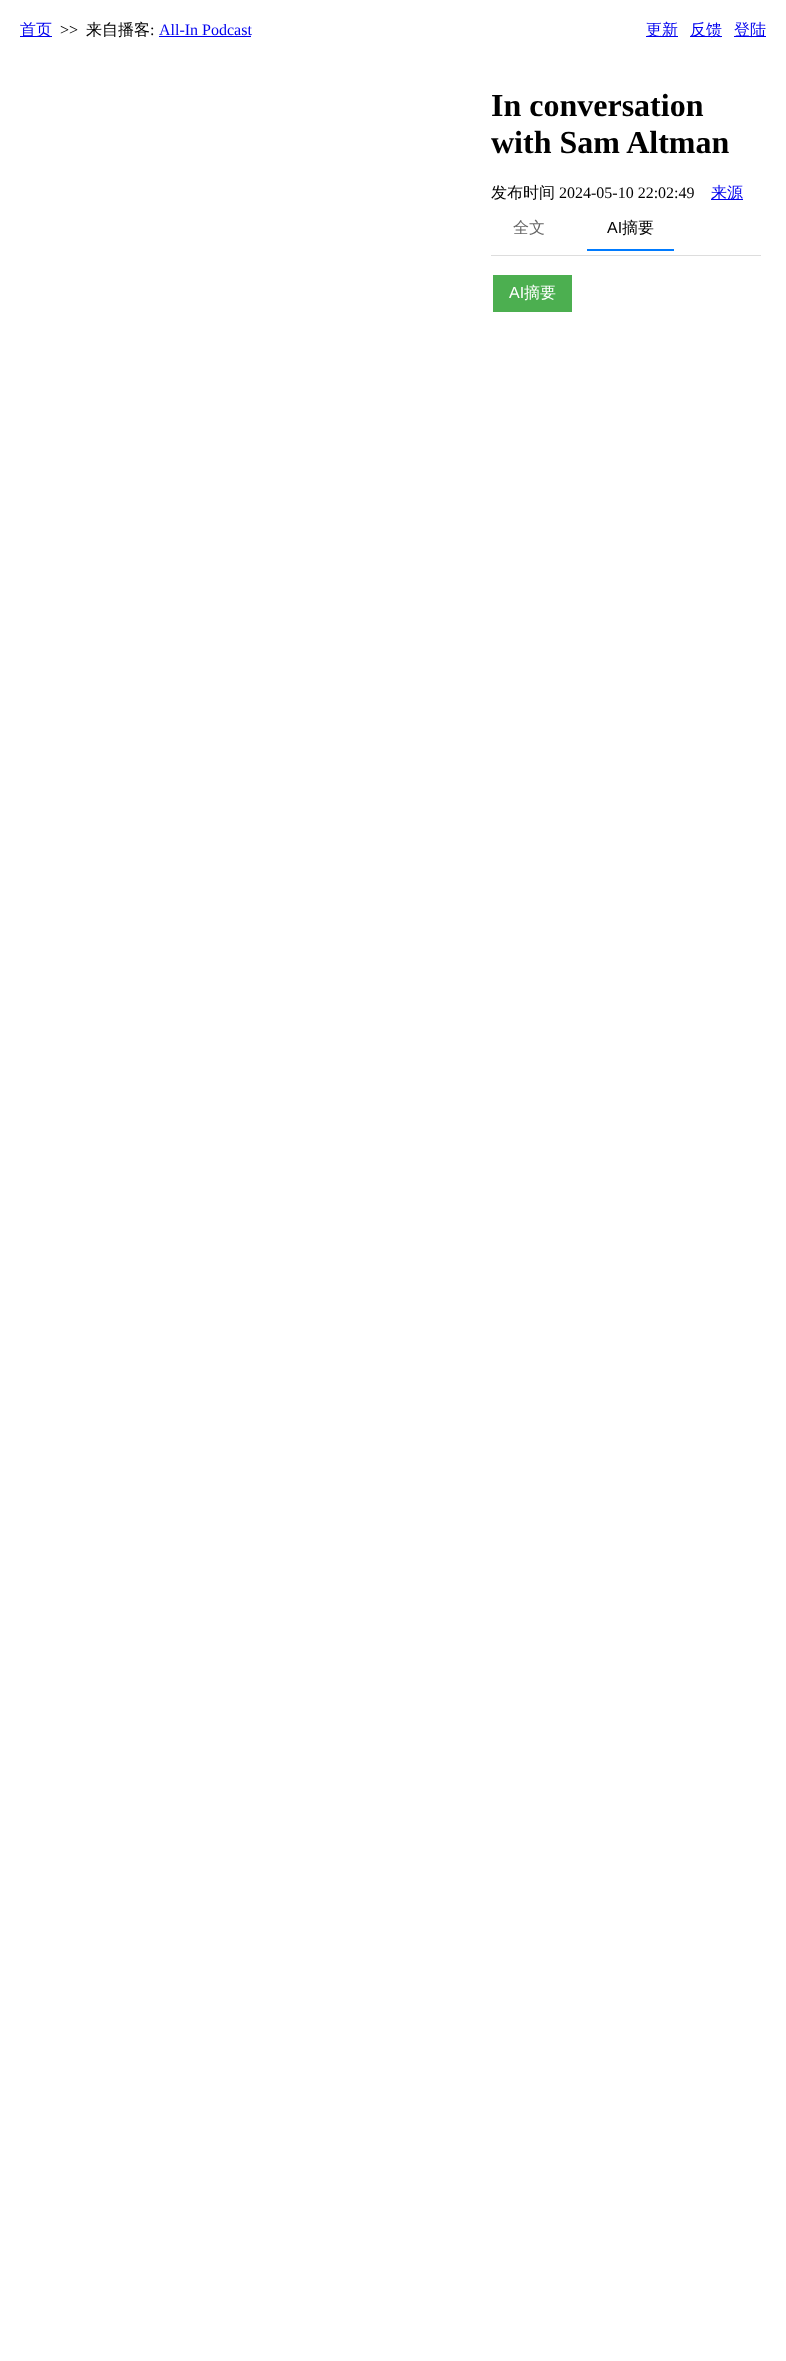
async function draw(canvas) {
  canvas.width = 786
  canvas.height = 2361
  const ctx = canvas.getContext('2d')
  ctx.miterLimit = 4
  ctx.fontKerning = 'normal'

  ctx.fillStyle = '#fff'
  ctx.fillRect(0, 0, 786, 2361)
  ctx.fillStyle = '#00e'
  ctx.fillRect(20, 36, 32, 1)
  ctx.font = '500 16px WenQuanYi Zen Hei'
  ctx.fillText('首页', 20, 35)
  ctx.font = '16px Liberation Serif'
  ctx.fillStyle = '#000'
  ctx.fillText('>>', 60, 35)
  ctx.font = '500 16px WenQuanYi Zen Hei'
  ctx.fillText('来自播客', 86, 35)
  ctx.font = '16px Liberation Serif'
  ctx.fillText(':', 150, 35)
  ctx.fillStyle = '#00e'
  ctx.fillText('All-In Podcast', 159, 35)
  ctx.fillRect(159, 36, 92, 1)
  ctx.fillRect(646, 36, 32, 1)
  ctx.font = '500 16px WenQuanYi Zen Hei'
  ctx.fillText('更新', 646, 35)
  ctx.fillRect(690, 36, 32, 1)
  ctx.fillText('反馈', 690, 35)
  ctx.fillRect(734, 36, 32, 1)
  ctx.fillText('登陆', 734, 35)
  ctx.font = 'bold 32px Liberation Serif'
  ctx.fillStyle = '#000'
  ctx.fillText('In conversation', 491, 116)
  ctx.fillText('with Sam Altman', 491, 153)
  ctx.font = '500 16px WenQuanYi Zen Hei'
  ctx.fillText('发布时间', 491, 198)
  ctx.font = '16px Liberation Serif'
  ctx.fillText('2024-05-10 22:02:49', 559, 198)
  ctx.fillStyle = '#00e'
  ctx.fillRect(711, 199, 32, 1)
  ctx.font = '500 16px WenQuanYi Zen Hei'
  ctx.fillText('来源', 711, 198)
  ctx.fillStyle = '#ddd'
  ctx.fillRect(491, 255, 270, 1)
  ctx.fillStyle = '#666'
  ctx.fillText('全文', 513, 233)
  ctx.fillStyle = '#007bff'
  ctx.fillRect(587, 249, 87, 2)
  ctx.font = '16px Liberation Sans'
  ctx.fillStyle = '#000'
  ctx.fillText('AI', 607, 233)
  ctx.font = '500 16px WenQuanYi Zen Hei'
  ctx.fillText('摘要', 622, 233)
  ctx.fillStyle = '#4caf50'
  ctx.fillRect(493, 275, 79, 37)
  ctx.font = '16px Liberation Sans'
  ctx.fillStyle = '#fff'
  ctx.fillText('AI', 509, 298)
  ctx.font = '500 16px WenQuanYi Zen Hei'
  ctx.fillText('摘要', 524, 298)
}

draw(document.querySelector('canvas'))
